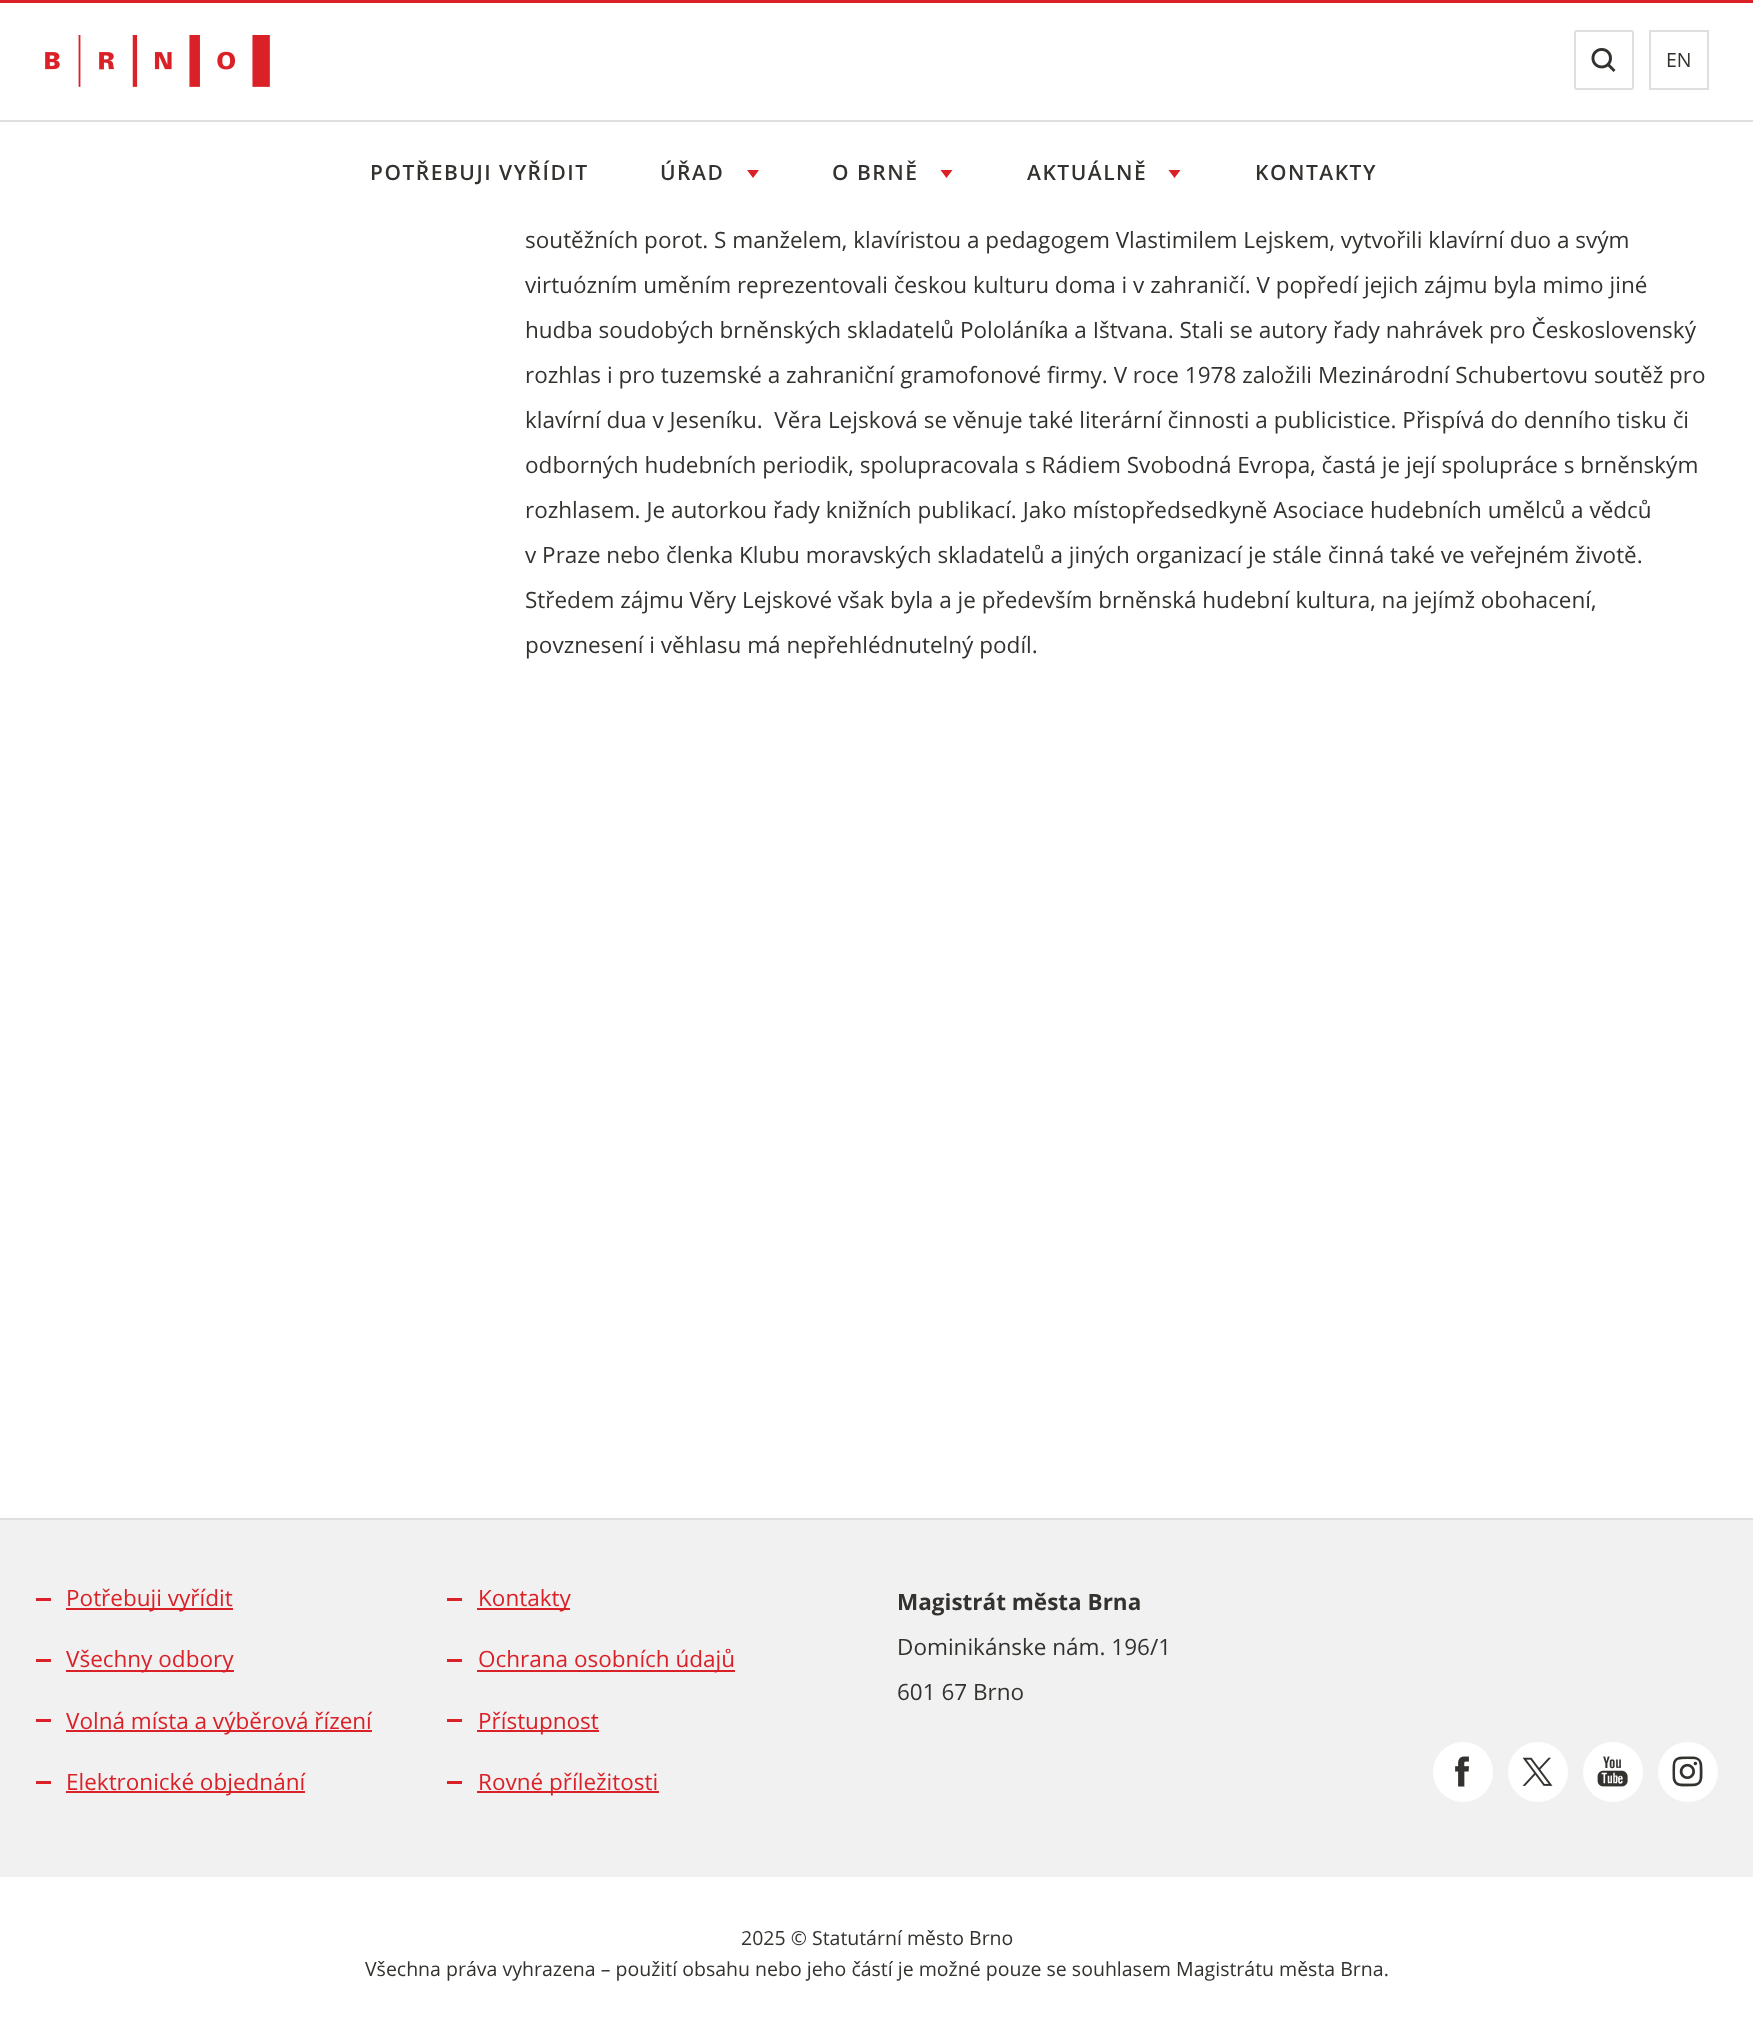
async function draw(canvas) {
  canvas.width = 1753
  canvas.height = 2037
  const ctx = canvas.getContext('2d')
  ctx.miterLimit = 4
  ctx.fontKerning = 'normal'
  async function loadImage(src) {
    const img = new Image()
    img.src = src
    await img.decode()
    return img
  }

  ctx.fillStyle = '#fff'
  ctx.fillRect(0, 0, 1753, 2037)
  ctx.fillStyle = '#da2128'
  ctx.fillRect(0, 0, 1753, 3)
  ctx.fillStyle = '#e0dede'
  ctx.fillRect(0, 120, 1753, 2)
  ctx.drawImage(await loadImage('image0.png'), 45, 35, 225, 52)
  ctx.beginPath()
  ctx.roundRect(1575, 31, 58, 58, 2)
  ctx.strokeStyle = '#e0dede'
  ctx.lineWidth = 2
  ctx.stroke()
  ctx.drawImage(await loadImage('image1.png'), 1591, 48, 25, 24)
  ctx.strokeRect(1650, 31, 58, 58)
  ctx.font = '19.5px Open Sans'
  ctx.fillStyle = '#34322f'
  ctx.fillText('EN', 1666, 67)
  ctx.letterSpacing = '1.5px'
  ctx.font = '600 21px Open Sans'
  ctx.fillText('POTŘEBUJI VYŘÍDIT', 370, 180)
  ctx.fillText('ÚŘAD', 660, 180)
  ctx.fillStyle = '#da2128'
  ctx.beginPath()
  ctx.moveTo(753, 178)
  ctx.lineTo(759, 170)
  ctx.lineTo(747, 170)
  ctx.closePath()
  ctx.fill()
  ctx.fillStyle = '#34322f'
  ctx.fillText('O BRNĚ', 832, 180)
  ctx.fillStyle = '#da2128'
  ctx.beginPath()
  ctx.moveTo(946.5, 178)
  ctx.lineTo(952.5, 170)
  ctx.lineTo(940.5, 170)
  ctx.closePath()
  ctx.fill()
  ctx.fillStyle = '#34322f'
  ctx.fillText('AKTUÁLNĚ', 1027, 180)
  ctx.fillStyle = '#da2128'
  ctx.beginPath()
  ctx.moveTo(1174.5, 178)
  ctx.lineTo(1180.5, 170)
  ctx.lineTo(1168.5, 170)
  ctx.closePath()
  ctx.fill()
  ctx.fillStyle = '#34322f'
  ctx.fillText('KONTAKTY', 1255, 180)
  ctx.letterSpacing = '0px'
  ctx.font = '22.5px Open Sans'
  ctx.fillText('soutěžních porot. S manželem, klavíristou a pedagogem Vlastimilem Lejskem, vytvořili klavírní duo a svým', 525, 248)
  ctx.fillText('virtuózním uměním reprezentovali českou kulturu doma i v zahraničí. V popředí jejich zájmu byla mimo jiné', 525, 293)
  ctx.fillText('hudba soudobých brněnských skladatelů Pololáníka a Ištvana. Stali se autory řady nahrávek pro Československý', 525, 338)
  ctx.fillText('rozhlas i pro tuzemské a zahraniční gramofonové firmy. V roce 1978 založili Mezinárodní Schubertovu soutěž pro', 525, 383)
  ctx.fillText('klavírní dua v Jeseníku.  Věra Lejsková se věnuje také literární činnosti a publicistice. Přispívá do denního tisku či', 525, 428)
  ctx.fillText('odborných hudebních periodik, spolupracovala s Rádiem Svobodná Evropa, častá je její spolupráce s brněnským', 525, 473)
  ctx.fillText('rozhlasem. Je autorkou řady knižních publikací. Jako místopředsedkyně Asociace hudebních umělců a vědců', 525, 518)
  ctx.fillText('v Praze nebo členka Klubu moravských skladatelů a jiných organizací je stále činná také ve veřejném životě.', 525, 563)
  ctx.fillText('Středem zájmu Věry Lejskové však byla a je především brněnská hudební kultura, na jejímž obohacení,', 525, 608)
  ctx.fillText('povznesení i věhlasu má nepřehlédnutelný podíl.', 525, 653)
  ctx.fillStyle = '#f1f1f1'
  ctx.fillRect(0, 1520, 1753, 357)
  ctx.fillStyle = '#e0dede'
  ctx.fillRect(0, 1518, 1753, 2)
  ctx.fillStyle = '#da2128'
  ctx.fillRect(36, 1598, 15, 3)
  ctx.fillRect(66, 1608, 167, 2)
  ctx.fillText('Potřebuji vyřídit', 66, 1606)
  ctx.fillRect(36, 1659, 15, 3)
  ctx.fillRect(66, 1670, 168, 2)
  ctx.fillText('Všechny odbory', 66, 1667)
  ctx.fillRect(36, 1719, 15, 3)
  ctx.fillRect(66, 1730, 306, 2)
  ctx.fillText('Volná místa a výběrová řízení', 66, 1729)
  ctx.fillRect(36, 1781, 15, 3)
  ctx.fillRect(66, 1791, 239, 2)
  ctx.fillText('Elektronické objednání', 66, 1790)
  ctx.fillRect(447, 1598, 15, 3)
  ctx.fillRect(477, 1608, 93, 2)
  ctx.fillText('Kontakty', 478, 1606)
  ctx.fillRect(447, 1659, 15, 3)
  ctx.fillRect(477, 1670, 258, 2)
  ctx.fillText('Ochrana osobních údajů', 478, 1667)
  ctx.fillRect(447, 1719, 15, 3)
  ctx.fillRect(477, 1730, 122, 2)
  ctx.fillText('Přístupnost', 478, 1729)
  ctx.fillRect(447, 1781, 15, 3)
  ctx.fillRect(477, 1791, 182, 2)
  ctx.fillText('Rovné příležitosti', 478, 1790)
  ctx.font = 'bold 22.5px Open Sans'
  ctx.fillStyle = '#34322f'
  ctx.fillText('Magistrát města Brna', 897, 1610)
  ctx.font = '22.5px Open Sans'
  ctx.fillText('Dominikánske nám. 196/1', 897, 1655)
  ctx.fillText('601 67 Brno', 897, 1700)
  ctx.fillStyle = '#fff'
  ctx.beginPath()
  ctx.arc(1463, 1772, 30, 0, 2 * Math.PI)
  ctx.fill()
  ctx.drawImage(await loadImage('image2.png'), 1455, 1756, 14, 31)
  ctx.beginPath()
  ctx.arc(1538, 1772, 30, 0, 2 * Math.PI)
  ctx.fill()
  ctx.drawImage(await loadImage('image3.png'), 1522, 1757, 31, 29)
  ctx.beginPath()
  ctx.arc(1613, 1772, 30, 0, 2 * Math.PI)
  ctx.fill()
  ctx.drawImage(await loadImage('image4.png'), 1597, 1756, 31, 31)
  ctx.beginPath()
  ctx.arc(1688, 1772, 30, 0, 2 * Math.PI)
  ctx.fill()
  ctx.drawImage(await loadImage('image5.png'), 1672, 1756, 31, 31)
  ctx.font = '19.5px Open Sans'
  ctx.fillStyle = '#34322f'
  ctx.fillText('2025 © Statutární město Brno', 741, 1945)
  ctx.fillText('Všechna práva vyhrazena – použití obsahu nebo jeho částí je možné pouze se souhlasem Magistrátu města Brna.', 365, 1976)
}

draw(document.querySelector('canvas'))
